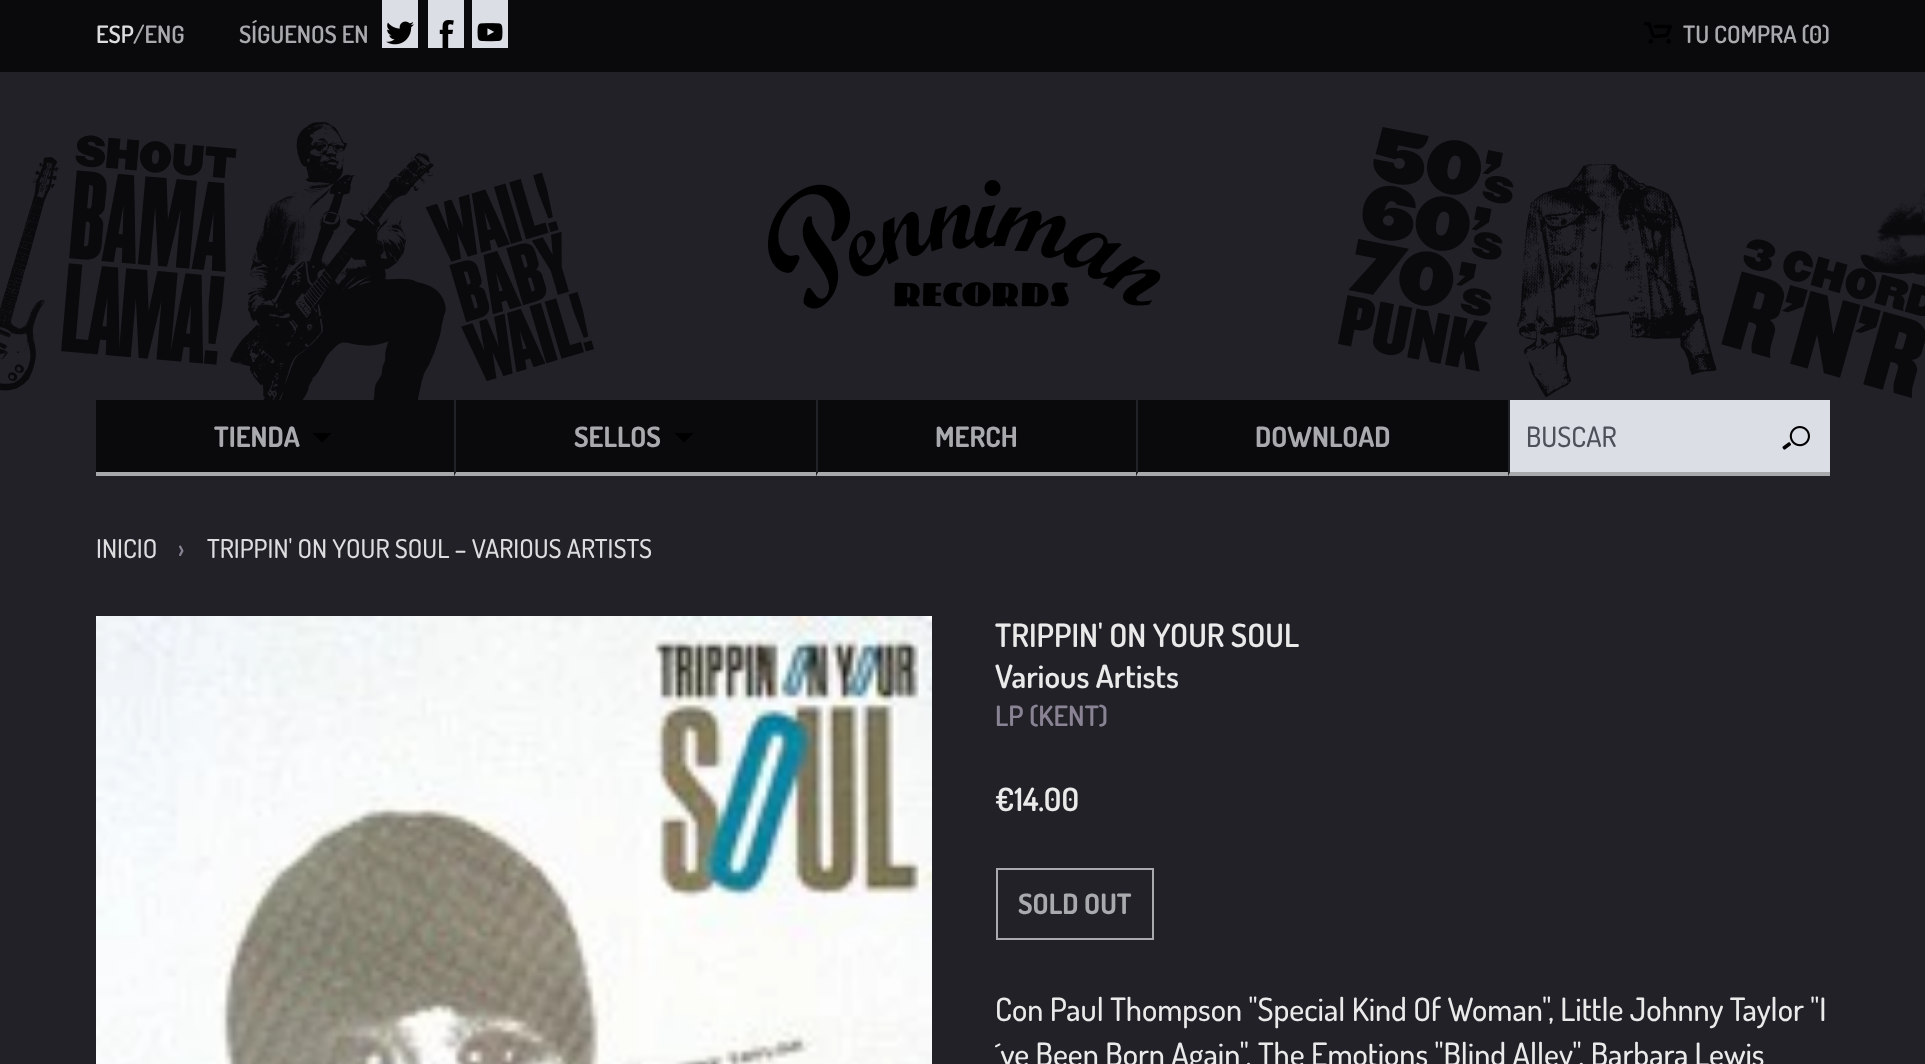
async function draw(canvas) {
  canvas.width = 1925
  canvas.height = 1064
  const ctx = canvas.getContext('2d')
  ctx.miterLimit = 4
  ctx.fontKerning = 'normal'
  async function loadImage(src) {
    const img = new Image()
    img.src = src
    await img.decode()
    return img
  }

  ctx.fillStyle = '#222128'
  ctx.fillRect(0, 0, 1925, 1064)
  ctx.fillStyle = '#0a0a0c'
  ctx.fillRect(0, 0, 1925, 72)
  ctx.font = '600 24px Dosis'
  ctx.fillStyle = '#dcddde'
  ctx.fillText('ESP', 96, 43)
  ctx.fillStyle = '#a8aaad'
  ctx.fillText('/ENG', 133, 43)
  ctx.fillText('SÍGUENOS EN', 239, 43)
  ctx.fillStyle = '#dcdee6'
  ctx.fillRect(382, 0, 36, 48)
  ctx.drawImage(await loadImage('image0.png'), 386, 21, 28, 24)
  ctx.fillRect(428, 0, 36, 48)
  ctx.drawImage(await loadImage('image1.png'), 439, 20, 15, 28)
  ctx.fillRect(472, 0, 36, 48)
  ctx.drawImage(await loadImage('image2.png'), 477, 23, 26, 19)
  ctx.drawImage(await loadImage('image3.png'), 1644, 22, 28, 22)
  ctx.fillStyle = '#a8aaad'
  ctx.fillText('TU COMPRA (', 1683, 43)
  ctx.fillText('0', 1809, 43)
  ctx.fillText(')', 1822, 43)
  ctx.drawImage(await loadImage('image4.png'), 0, 122, 594, 278)
  ctx.drawImage(await loadImage('image5.png'), 768, 180, 393, 129)
  ctx.drawImage(await loadImage('image6.png'), 1338, 127, 587, 271)
  ctx.fillStyle = '#0a0a0c'
  ctx.fillRect(96, 400, 358, 72)
  ctx.fillStyle = '#a7a9ab'
  ctx.fillRect(96, 472, 358, 4)
  ctx.font = 'bold 28px Dosis'
  ctx.fillStyle = '#a8aaad'
  ctx.fillText('TIENDA', 214, 447)
  ctx.fillStyle = '#000'
  ctx.beginPath()
  ctx.moveTo(331.5, 433)
  ctx.lineTo(322, 442.5)
  ctx.lineTo(312.5, 433)
  ctx.closePath()
  ctx.fill()
  ctx.fillStyle = '#0a0a0c'
  ctx.fillRect(454, 400, 1054, 76)
  ctx.fillStyle = '#a7a9ab'
  ctx.beginPath()
  ctx.moveTo(816, 476)
  ctx.lineTo(454, 476)
  ctx.lineTo(456, 472)
  ctx.lineTo(816, 472)
  ctx.closePath()
  ctx.fill()
  ctx.fillStyle = '#212128'
  ctx.beginPath()
  ctx.moveTo(454, 476)
  ctx.lineTo(454, 400)
  ctx.lineTo(456, 400)
  ctx.lineTo(456, 472)
  ctx.closePath()
  ctx.fill()
  ctx.fillStyle = '#a8aaad'
  ctx.fillText('SELLOS', 574, 447)
  ctx.fillStyle = '#000'
  ctx.beginPath()
  ctx.moveTo(693.5, 433)
  ctx.lineTo(684, 442.5)
  ctx.lineTo(674.5, 433)
  ctx.closePath()
  ctx.fill()
  ctx.fillStyle = '#a7a9ab'
  ctx.beginPath()
  ctx.moveTo(1136, 476)
  ctx.lineTo(816, 476)
  ctx.lineTo(818, 472)
  ctx.lineTo(1136, 472)
  ctx.closePath()
  ctx.fill()
  ctx.fillStyle = '#212128'
  ctx.beginPath()
  ctx.moveTo(816, 476)
  ctx.lineTo(816, 400)
  ctx.lineTo(818, 400)
  ctx.lineTo(818, 472)
  ctx.closePath()
  ctx.fill()
  ctx.fillStyle = '#a8aaad'
  ctx.fillText('MERCH', 935, 447)
  ctx.fillStyle = '#a7a9ab'
  ctx.beginPath()
  ctx.moveTo(1508, 476)
  ctx.lineTo(1136, 476)
  ctx.lineTo(1138, 472)
  ctx.lineTo(1508, 472)
  ctx.closePath()
  ctx.fill()
  ctx.fillStyle = '#212128'
  ctx.beginPath()
  ctx.moveTo(1136, 476)
  ctx.lineTo(1136, 400)
  ctx.lineTo(1138, 400)
  ctx.lineTo(1138, 472)
  ctx.closePath()
  ctx.fill()
  ctx.fillStyle = '#a8aaad'
  ctx.fillText('DOWNLOAD', 1255, 447)
  ctx.fillStyle = '#a7a9ab'
  ctx.beginPath()
  ctx.moveTo(1830, 476)
  ctx.lineTo(1508, 476)
  ctx.lineTo(1510, 472)
  ctx.lineTo(1830, 472)
  ctx.closePath()
  ctx.fill()
  ctx.fillStyle = '#212128'
  ctx.beginPath()
  ctx.moveTo(1508, 476)
  ctx.lineTo(1508, 400)
  ctx.lineTo(1510, 400)
  ctx.lineTo(1510, 472)
  ctx.closePath()
  ctx.fill()
  ctx.fillStyle = '#dcdee6'
  ctx.fillRect(1510, 400, 320, 72)
  ctx.font = '500 28px Dosis'
  ctx.fillStyle = '#4f515a'
  ctx.fillText('BUSCAR', 1526, 447)
  ctx.drawImage(await loadImage('image7.png'), 1782, 426, 28, 24)
  ctx.font = '500 26px Dosis'
  ctx.fillStyle = '#dcddde'
  ctx.fillText('INICIO', 96, 558)
  ctx.fillStyle = '#8a8394'
  ctx.fillText('›', 178, 558)
  ctx.fillStyle = '#dcddde'
  ctx.fillText('TRIPPIN\' ON YOUR SOUL – VARIOUS ARTISTS', 207, 558)
  ctx.drawImage(await loadImage('image8.png'), 96, 616, 836, 448)
  ctx.font = '600 32px Dosis'
  ctx.fillStyle = '#eaeaea'
  ctx.fillText('TRIPPIN\' ON YOUR SOUL', 995, 647)
  ctx.fillText('Various Artists', 995, 688)
  ctx.font = '600 28px Dosis'
  ctx.fillStyle = '#8a8394'
  ctx.fillText('LP (KENT)', 995, 726)
  ctx.font = '600 32px Dosis'
  ctx.fillStyle = '#eaeaea'
  ctx.fillText('€14.00', 995, 811)
  ctx.strokeStyle = '#a8aaad'
  ctx.lineWidth = 2
  ctx.strokeRect(997, 869, 156, 70)
  ctx.font = 'bold 28px Dosis'
  ctx.fillStyle = '#a8aaad'
  ctx.fillText('SOLD OUT', 1018, 914)
  ctx.font = '500 32px Dosis'
  ctx.fillStyle = '#eaeaea'
  ctx.fillText('Con Paul Thompson "Special Kind Of Woman", Little Johnny Taylor "I', 995, 1021)
  ctx.fillText('´ve Been Born Again", The Emotions "Blind Alley", Barbara Lewis', 995, 1066)
}

draw(document.querySelector('canvas'))
